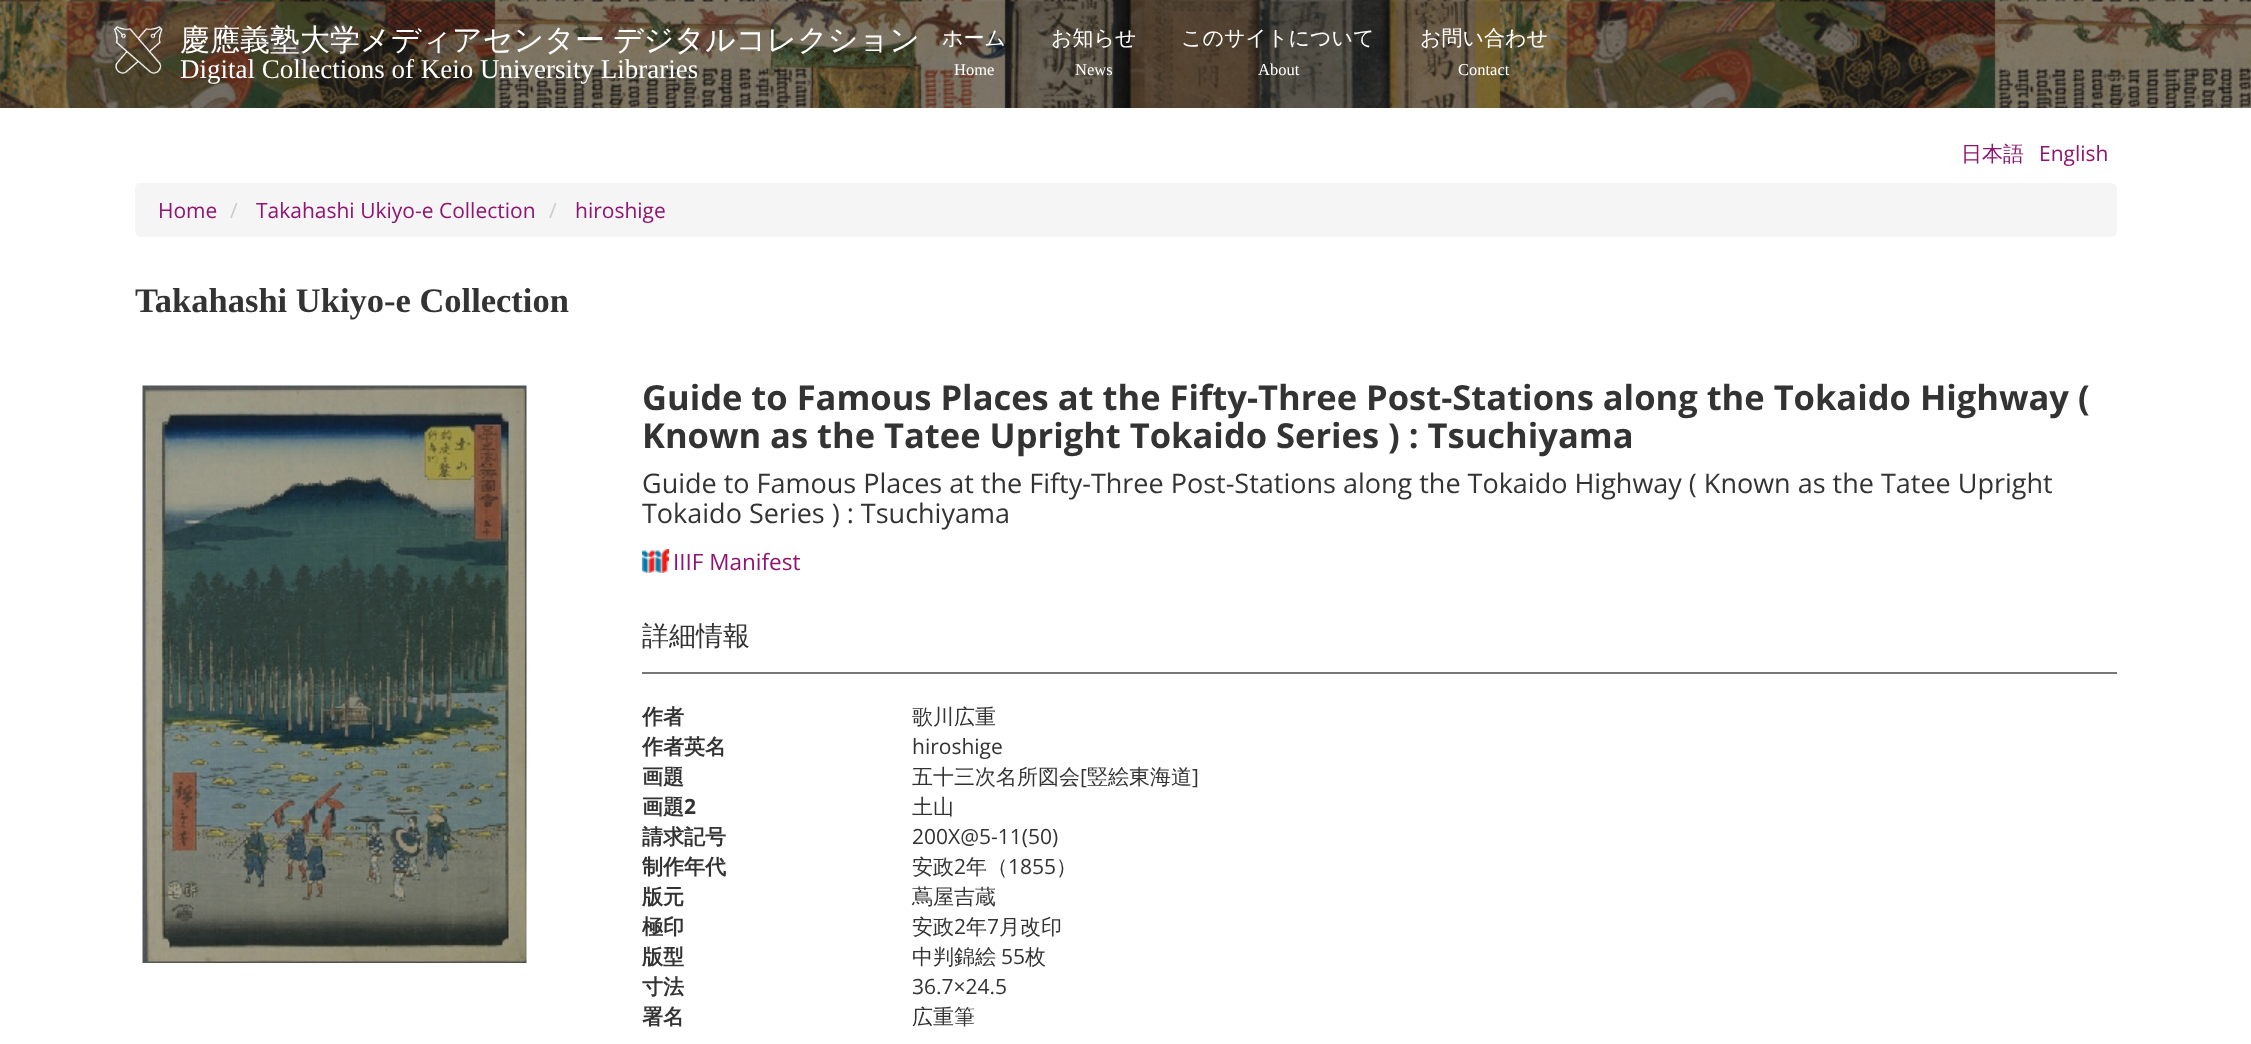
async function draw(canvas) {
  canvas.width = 2251
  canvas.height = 1044
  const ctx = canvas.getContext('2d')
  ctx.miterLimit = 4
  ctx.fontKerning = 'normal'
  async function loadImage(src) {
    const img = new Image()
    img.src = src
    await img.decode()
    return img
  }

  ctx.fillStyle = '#fff'
  ctx.fillRect(0, 0, 2251, 1044)
  ctx.drawImage(await loadImage('image0.png'), 0, 0, 2251, 108)
  ctx.drawImage(await loadImage('image1.png'), 113, 26, 50, 48)
  ctx.wordSpacing = '-1px'
  ctx.font = '500 30px WenQuanYi Zen Hei'
  ctx.fillText('慶應義塾大学メディアセンター デジタルコレクション', 180, 50)
  ctx.wordSpacing = '0px'
  ctx.font = '27px Liberation Serif'
  ctx.fillText('Digital Collections of Keio University Libraries', 180, 78)
  ctx.font = '500 21px WenQuanYi Zen Hei'
  ctx.fillText('ホーム', 942, 45)
  ctx.font = '16.5px Liberation Serif'
  ctx.fillText('Home', 954, 75)
  ctx.font = '500 21px WenQuanYi Zen Hei'
  ctx.fillText('お知らせ', 1051, 45)
  ctx.font = '16.5px Liberation Serif'
  ctx.fillText('News', 1075, 75)
  ctx.font = '500 21px WenQuanYi Zen Hei'
  ctx.fillText('このサイトについて', 1181, 45)
  ctx.font = '16.5px Liberation Serif'
  ctx.fillText('About', 1258, 75)
  ctx.font = '500 21px WenQuanYi Zen Hei'
  ctx.fillText('お問い合わせ', 1420, 45)
  ctx.font = '16.5px Liberation Serif'
  ctx.fillText('Contact', 1458, 75)
  ctx.font = '500 21px WenQuanYi Zen Hei'
  ctx.fillStyle = '#901471'
  ctx.fillText('日本語', 1961, 161)
  ctx.font = '21px Open Sans'
  ctx.fillText('English', 2039, 161)
  ctx.fillStyle = '#f5f5f5'
  ctx.beginPath()
  ctx.roundRect(135, 183, 1982, 54, 6)
  ctx.fill()
  ctx.fillStyle = '#901471'
  ctx.fillText('Home', 158, 218)
  ctx.fillStyle = '#ccc'
  ctx.fillText('/', 230, 218)
  ctx.fillStyle = '#901471'
  ctx.fillText('Takahashi Ukiyo-e Collection', 256, 218)
  ctx.fillStyle = '#ccc'
  ctx.fillText('/', 549, 218)
  ctx.fillStyle = '#901471'
  ctx.fillText('hiroshige', 575, 218)
  ctx.font = 'bold 34.5px Liberation Serif'
  ctx.fillStyle = '#333'
  ctx.fillText('Takahashi Ukiyo-e Collection', 135, 312)
  ctx.drawImage(await loadImage('image2.png'), 142, 385, 385, 578)
  ctx.font = 'bold 34.5px Open Sans'
  ctx.fillText('Guide to Famous Places at the Fifty-Three Post-Stations along the Tokaido Highway (', 642, 410)
  ctx.fillText('Known as the Tatee Upright Tokaido Series ) : Tsuchiyama', 642, 448)
  ctx.font = '27px Open Sans'
  ctx.fillText('Guide to Famous Places at the Fifty-Three Post-Stations along the Tokaido Highway ( Known as the Tatee Upright', 642, 493)
  ctx.fillText('Tokaido Series ) : Tsuchiyama', 642, 523)
  ctx.drawImage(await loadImage('image3.png'), 642, 549, 27, 24)
  ctx.font = '22.5px Open Sans'
  ctx.fillStyle = '#901471'
  ctx.fillText('IIIF Manifest', 673, 570)
  ctx.fillStyle = '#777'
  ctx.fillRect(642, 672, 1475, 2)
  ctx.font = '500 27px WenQuanYi Zen Hei'
  ctx.fillStyle = '#333'
  ctx.fillText('詳細情報', 642, 645)
  ctx.font = 'bold 21px WenQuanYi Zen Hei'
  ctx.fillText('作者', 642, 724)
  ctx.font = '500 21px WenQuanYi Zen Hei'
  ctx.fillText('歌川広重', 912, 724)
  ctx.font = 'bold 21px WenQuanYi Zen Hei'
  ctx.fillText('作者英名', 642, 754)
  ctx.font = '21px Open Sans'
  ctx.fillText('hiroshige', 912, 754)
  ctx.font = 'bold 21px WenQuanYi Zen Hei'
  ctx.fillText('画題', 642, 784)
  ctx.font = '500 21px WenQuanYi Zen Hei'
  ctx.fillText('五十三次名所図会', 912, 784)
  ctx.font = '21px Open Sans'
  ctx.fillText('[', 1080, 784)
  ctx.font = '500 21px WenQuanYi Zen Hei'
  ctx.fillText('竪絵東海道', 1087, 784)
  ctx.font = '21px Open Sans'
  ctx.fillText(']', 1192, 784)
  ctx.font = 'bold 21px WenQuanYi Zen Hei'
  ctx.fillText('画題', 642, 814)
  ctx.font = 'bold 21px Open Sans'
  ctx.fillText('2', 684, 814)
  ctx.font = '500 21px WenQuanYi Zen Hei'
  ctx.fillText('土山', 912, 814)
  ctx.font = 'bold 21px WenQuanYi Zen Hei'
  ctx.fillText('請求記号', 642, 844)
  ctx.font = '21px Open Sans'
  ctx.fillText('200X@5-11(50)', 912, 844)
  ctx.font = 'bold 21px WenQuanYi Zen Hei'
  ctx.fillText('制作年代', 642, 874)
  ctx.font = '500 21px WenQuanYi Zen Hei'
  ctx.fillText('安政', 912, 874)
  ctx.font = '21px Open Sans'
  ctx.fillText('2', 954, 874)
  ctx.font = '500 21px WenQuanYi Zen Hei'
  ctx.fillText('年（', 966, 874)
  ctx.font = '21px Open Sans'
  ctx.fillText('1855', 1008, 874)
  ctx.font = '500 21px WenQuanYi Zen Hei'
  ctx.fillText('）', 1056, 874)
  ctx.font = 'bold 21px WenQuanYi Zen Hei'
  ctx.fillText('版元', 642, 904)
  ctx.font = '500 21px WenQuanYi Zen Hei'
  ctx.fillText('蔦屋吉蔵', 912, 904)
  ctx.font = 'bold 21px WenQuanYi Zen Hei'
  ctx.fillText('極印', 642, 934)
  ctx.font = '500 21px WenQuanYi Zen Hei'
  ctx.fillText('安政', 912, 934)
  ctx.font = '21px Open Sans'
  ctx.fillText('2', 954, 934)
  ctx.font = '500 21px WenQuanYi Zen Hei'
  ctx.fillText('年', 966, 934)
  ctx.font = '21px Open Sans'
  ctx.fillText('7', 987, 934)
  ctx.font = '500 21px WenQuanYi Zen Hei'
  ctx.fillText('月改印', 999, 934)
  ctx.font = 'bold 21px WenQuanYi Zen Hei'
  ctx.fillText('版型', 642, 964)
  ctx.font = '500 21px WenQuanYi Zen Hei'
  ctx.fillText('中判錦絵', 912, 964)
  ctx.font = '21px Open Sans'
  ctx.fillText('55', 1001, 964)
  ctx.font = '500 21px WenQuanYi Zen Hei'
  ctx.fillText('枚', 1025, 964)
  ctx.font = 'bold 21px WenQuanYi Zen Hei'
  ctx.fillText('寸法', 642, 994)
  ctx.font = '21px Open Sans'
  ctx.fillText('36.7×24.5', 912, 994)
  ctx.font = 'bold 21px WenQuanYi Zen Hei'
  ctx.fillText('署名', 642, 1024)
  ctx.font = '500 21px WenQuanYi Zen Hei'
  ctx.fillText('広重筆', 912, 1024)
}

draw(document.querySelector('canvas'))
